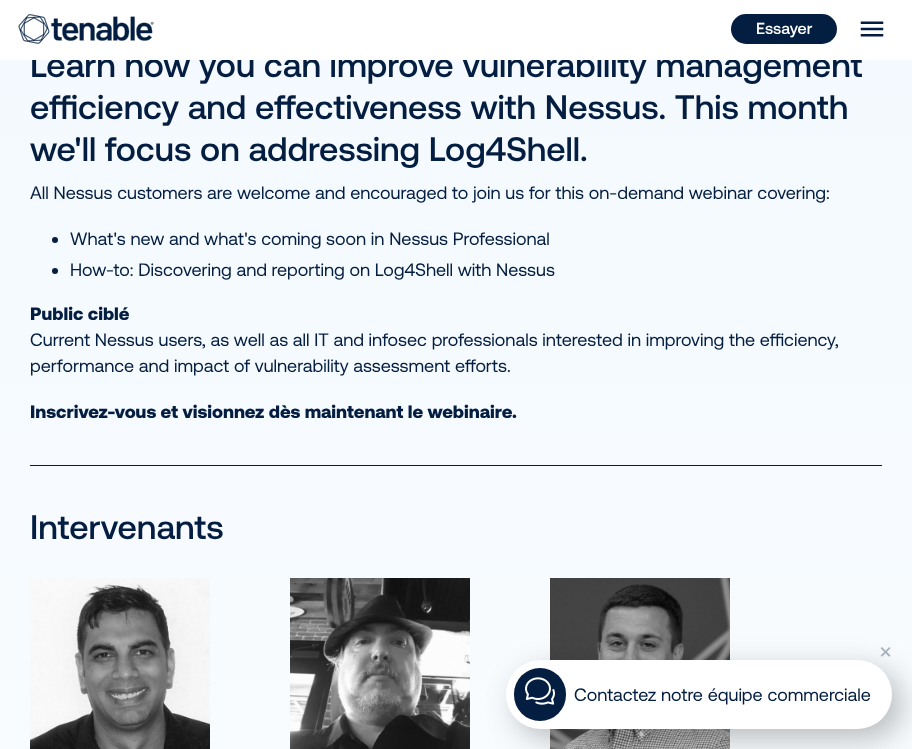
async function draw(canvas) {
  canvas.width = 912
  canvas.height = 749
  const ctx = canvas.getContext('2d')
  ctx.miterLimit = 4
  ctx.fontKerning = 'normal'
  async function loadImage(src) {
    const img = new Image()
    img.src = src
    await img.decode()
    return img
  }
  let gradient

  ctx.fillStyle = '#fff'
  ctx.fillRect(0, 0, 912, 749)
  gradient = ctx.createLinearGradient(456, -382, 456, 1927)
  gradient.addColorStop(0, '#f1f8fe')
  gradient.addColorStop(1, '#fff')
  ctx.fillStyle = gradient
  ctx.fillRect(0, 60, 912, 689)
  ctx.font = '500 34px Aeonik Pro'
  ctx.fillStyle = '#041e42'
  ctx.fillText('Learn how you can improve vulnerability management', 30, 77)
  ctx.fillStyle = '#fff'
  ctx.fillRect(32, 52, 830, 8)
  ctx.drawImage(await loadImage('image0.png'), 18, 14, 136, 30)
  ctx.fillStyle = '#041e42'
  ctx.beginPath()
  ctx.roundRect(731, 14, 106, 30, 15)
  ctx.fill()
  ctx.font = '500 16px Aeonik Pro'
  ctx.fillStyle = '#fff'
  ctx.fillText('Essayer', 756, 34)
  ctx.drawImage(await loadImage('image1.png'), 860, 21, 24, 16)
  ctx.font = '500 34px Aeonik Pro'
  ctx.fillStyle = '#041e42'
  ctx.fillText('efficiency and effectiveness with Nessus. This month', 30, 119)
  ctx.fillText('we\'ll focus on addressing Log4Shell.', 30, 161)
  ctx.font = '18px Aeonik Pro'
  ctx.fillText('All Nessus customers are welcome and encouraged to join us for this on-demand webinar covering:', 30, 199)
  ctx.beginPath()
  ctx.arc(55, 240, 3, 0, 2 * Math.PI)
  ctx.fill()
  ctx.fillText('What\'s new and what\'s coming soon in Nessus Professional', 70, 245)
  ctx.beginPath()
  ctx.arc(55, 271, 3, 0, 2 * Math.PI)
  ctx.fill()
  ctx.fillText('How-to: Discovering and reporting on Log4Shell with Nessus', 70, 276)
  ctx.font = '900 18px Aeonik Pro'
  ctx.fillText('Public ciblé', 30, 320)
  ctx.font = '18px Aeonik Pro'
  ctx.fillText('Current Nessus users, as well as all IT and infosec professionals interested in improving the efficiency,', 30, 346)
  ctx.fillText('performance and impact of vulnerability assessment efforts.', 30, 372)
  ctx.font = '900 18px Aeonik Pro'
  ctx.fillText('Inscrivez-vous et visionnez dès maintenant le webinaire.', 30, 418)
  ctx.fillRect(30, 465, 852, 1)
  ctx.font = '500 34px Aeonik Pro'
  ctx.fillText('Intervenants', 30, 539)
  ctx.drawImage(await loadImage('image2.png'), 30, 578, 180, 171)
  ctx.drawImage(await loadImage('image3.png'), 290, 578, 180, 171)
  ctx.drawImage(await loadImage('image4.png'), 550, 578, 180, 171)
  ctx.fillStyle = '#00000040'
  ctx.filter = 'blur(15px)'
  ctx.beginPath()
  ctx.roundRect(516, 670, 386, 69, 34.5)
  ctx.fill()
  ctx.filter = 'none'
  ctx.font = '25px Aeonik Pro'
  ctx.fillStyle = '#a7b0bd'
  ctx.fillText('×', 879, 659)
  ctx.fillStyle = '#fff'
  ctx.beginPath()
  ctx.roundRect(506, 660, 386, 69, 34.5)
  ctx.fill()
  ctx.fillStyle = '#041e42'
  ctx.beginPath()
  ctx.roundRect(514, 668, 52, 53, 26)
  ctx.fill()
  ctx.drawImage(await loadImage('image5.png'), 525, 677, 30, 28)
  ctx.font = '18px Aeonik Pro'
  ctx.fillText('Contactez notre équipe commerciale', 574, 701)
}

draw(document.querySelector('canvas'))
